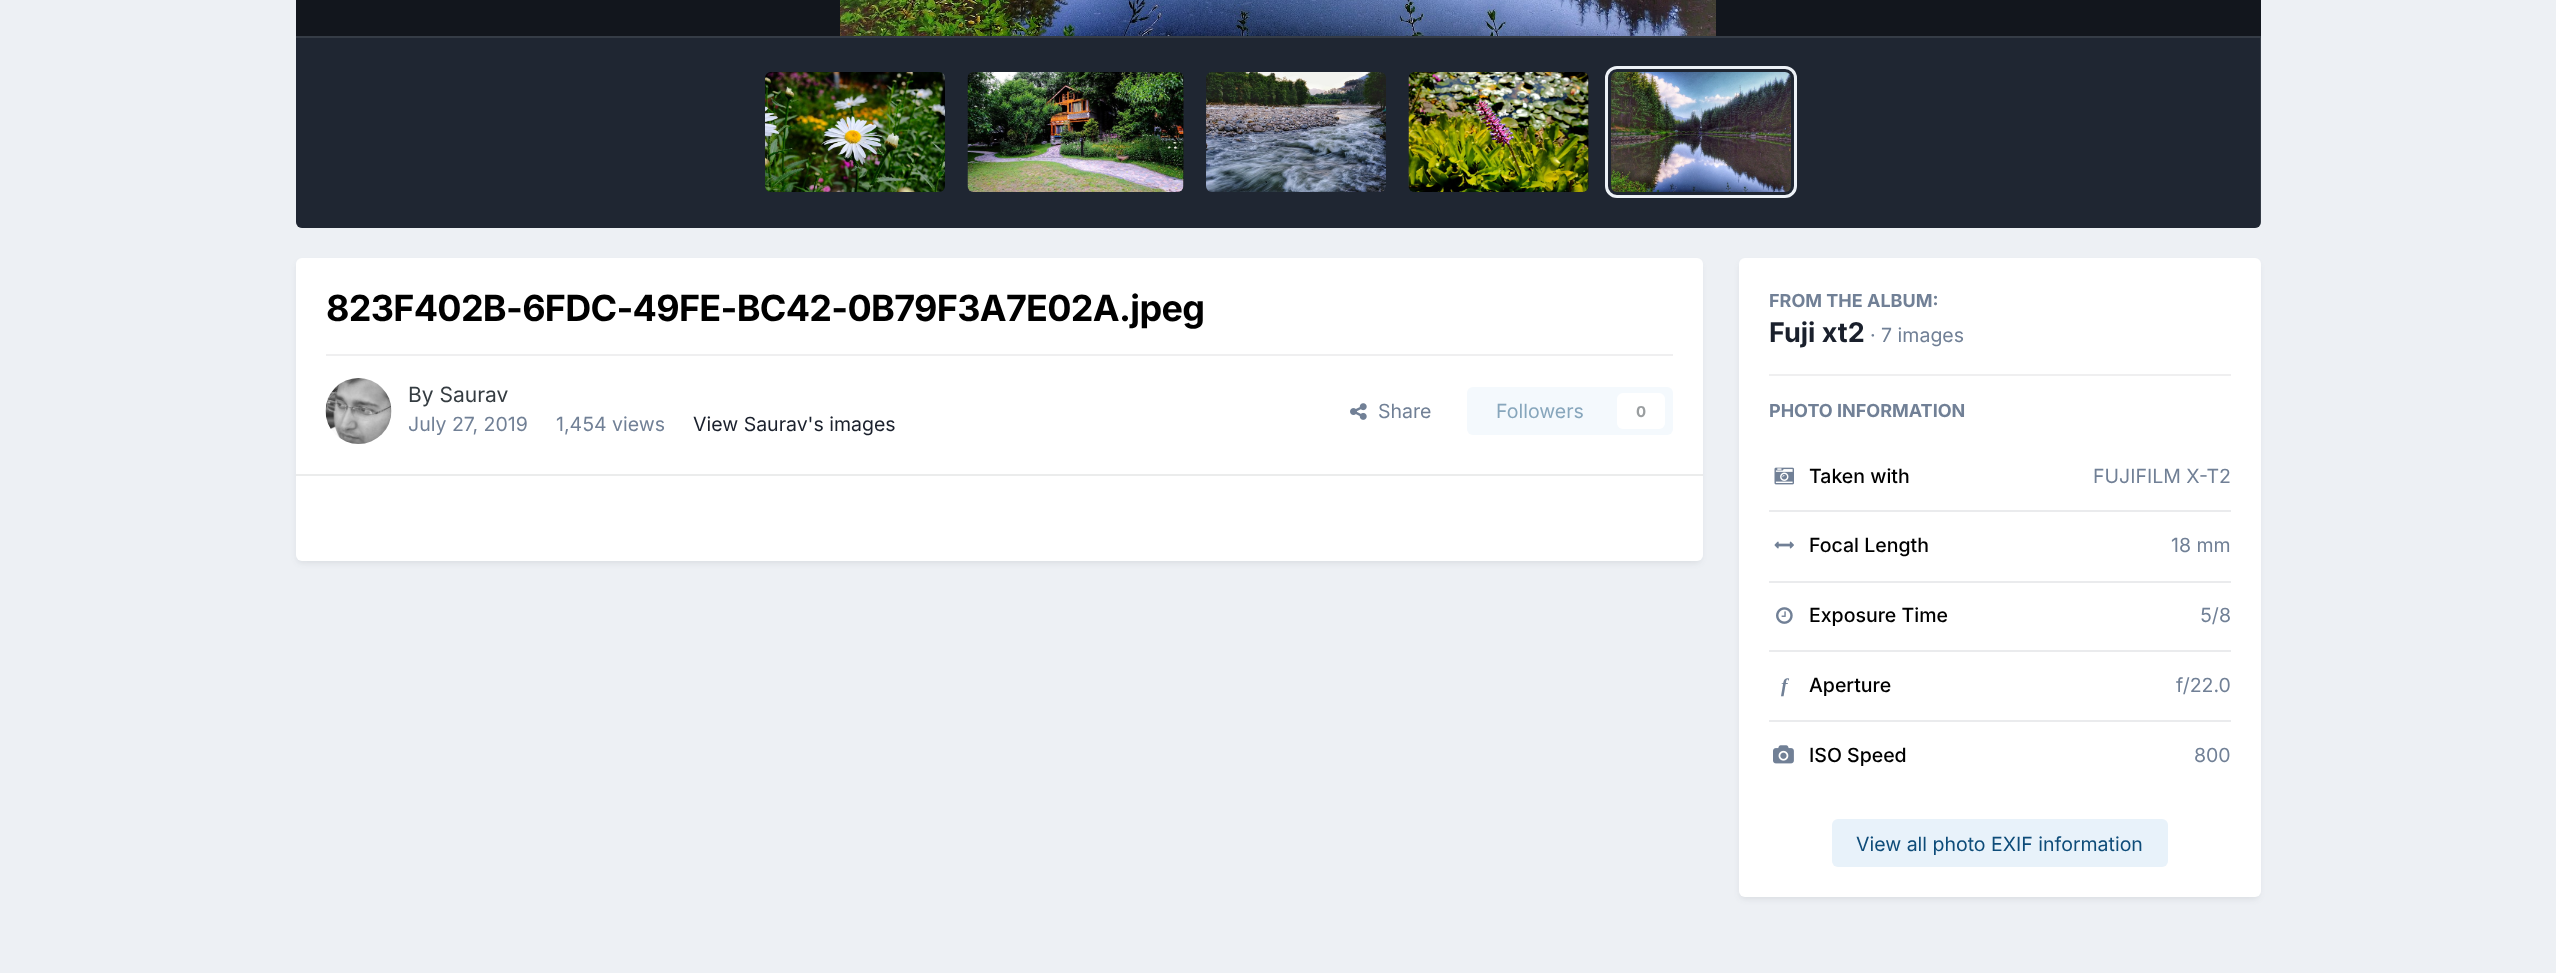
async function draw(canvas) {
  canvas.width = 2556
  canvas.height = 973
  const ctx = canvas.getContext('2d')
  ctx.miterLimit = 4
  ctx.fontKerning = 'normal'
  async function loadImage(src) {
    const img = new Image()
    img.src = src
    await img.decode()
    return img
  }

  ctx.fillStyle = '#edf0f4'
  ctx.fillRect(0, 0, 2556, 973)
  ctx.fillStyle = '#12161d'
  ctx.fillRect(296, 0, 1965, 36)
  ctx.drawImage(await loadImage('image0.png'), 840, 0, 876, 36)
  ctx.fillStyle = '#2d3748'
  ctx.beginPath()
  ctx.roundRect(296, 36, 1965, 192, [0, 0, 6, 6])
  ctx.fill()
  ctx.fillStyle = '#0000004d'
  ctx.beginPath()
  ctx.roundRect(296, 36, 1965, 192, [0, 0, 6, 6])
  ctx.fill()
  ctx.fillStyle = '#ffffff1a'
  ctx.beginPath()
  ctx.moveTo(296, 38)
  ctx.lineTo(2260, 38)
  ctx.lineTo(2260, 226)
  ctx.bezierCurveTo(2261, 225, 2261, 223, 2261, 222)
  ctx.lineTo(2261, 36)
  ctx.lineTo(296, 36)
  ctx.closePath()
  ctx.fill()
  ctx.drawImage(await loadImage('image1.png'), 765, 72, 180, 120)
  ctx.fillStyle = '#141414'
  ctx.beginPath()
  ctx.roundRect(968, 72, 216, 120, 6)
  ctx.fill()
  ctx.fillStyle = '#2d37484d'
  ctx.beginPath()
  ctx.roundRect(968, 72, 216, 120, 6)
  ctx.fill()
  ctx.drawImage(await loadImage('image2.png'), 967, 72, 217, 120)
  ctx.drawImage(await loadImage('image3.png'), 1206, 72, 180, 120)
  ctx.fillStyle = '#141414'
  ctx.beginPath()
  ctx.roundRect(1409, 72, 180, 120, 6)
  ctx.fill()
  ctx.fillStyle = '#2d37484d'
  ctx.beginPath()
  ctx.roundRect(1409, 72, 180, 120, 6)
  ctx.fill()
  ctx.drawImage(await loadImage('image4.png'), 1408, 72, 181, 120)
  ctx.beginPath()
  ctx.roundRect(1606.5, 67.5, 189, 129, 10.5)
  ctx.strokeStyle = '#edf2f7'
  ctx.lineWidth = 3
  ctx.stroke()
  ctx.drawImage(await loadImage('image5.png'), 1611, 72, 180, 120)
  ctx.fillStyle = '#2d37481a'
  ctx.filter = 'blur(3px)'
  ctx.beginPath()
  ctx.roundRect(297, 263, 1404, 300, 5)
  ctx.fill()
  ctx.filter = 'none'
  ctx.fillStyle = '#fff'
  ctx.beginPath()
  ctx.roundRect(296, 258, 1407, 303, 6)
  ctx.fill()
  ctx.letterSpacing = '-0.7px'
  ctx.font = 'bold 36px Inter'
  ctx.fillStyle = '#000'
  ctx.fillText('823F402B-6FDC-49FE-BC42-0B79F3A7E02A.jpeg', 326, 321)
  ctx.fillStyle = '#efeff0'
  ctx.fillRect(326, 354, 1347, 2)
  ctx.drawImage(await loadImage('image6.png'), 325, 378, 67, 66)
  ctx.letterSpacing = '0px'
  ctx.font = '21px Inter'
  ctx.fillStyle = '#353c41'
  ctx.fillText('By Saurav', 408, 402)
  ctx.font = '19.5px Inter'
  ctx.fillStyle = '#718096'
  ctx.fillText('July 27, 2019', 408, 431)
  ctx.fillText('1,454 views', 556, 431)
  ctx.fillStyle = '#1a202c'
  ctx.fillText('View Saurav\'s images', 693, 431)
  ctx.drawImage(await loadImage('image7.png'), 1350, 403, 17, 17)
  ctx.fillStyle = '#718096'
  ctx.fillText('Share', 1378, 418)
  ctx.fillStyle = '#f4f9fd'
  ctx.beginPath()
  ctx.roundRect(1467, 387, 206, 48, 6)
  ctx.fill()
  ctx.fillStyle = '#87a6bc'
  ctx.fillText('Followers', 1496, 418)
  ctx.fillStyle = '#fff'
  ctx.beginPath()
  ctx.roundRect(1617, 393, 48, 36, 6)
  ctx.fill()
  ctx.font = 'bold 15px Inter'
  ctx.fillStyle = '#9a9ea0'
  ctx.fillText('0', 1636, 417)
  ctx.fillStyle = '#ebecec'
  ctx.fillRect(296, 474, 1407, 2)
  ctx.fillStyle = '#2d37481a'
  ctx.filter = 'blur(3px)'
  ctx.beginPath()
  ctx.roundRect(1740, 263, 519, 636, 5)
  ctx.fill()
  ctx.filter = 'none'
  ctx.fillStyle = '#fff'
  ctx.beginPath()
  ctx.roundRect(1739, 258, 522, 639, 6)
  ctx.fill()
  ctx.font = 'bold 18px Inter'
  ctx.fillStyle = '#718096'
  ctx.fillText('FROM THE ALBUM:', 1769, 307)
  ctx.font = 'bold 27px Inter'
  ctx.fillStyle = '#1a202c'
  ctx.fillText('Fuji xt2', 1769, 342)
  ctx.font = '19.5px Inter'
  ctx.fillStyle = '#718096'
  ctx.fillText('· 7 images', 1870, 342)
  ctx.fillStyle = '#efeff0'
  ctx.fillRect(1769, 374, 462, 2)
  ctx.font = 'bold 18px Inter'
  ctx.fillStyle = '#718096'
  ctx.fillText('PHOTO INFORMATION', 1769, 417)
  ctx.fillStyle = '#eaebed'
  ctx.fillRect(1769, 510, 462, 2)
  ctx.drawImage(await loadImage('image8.png'), 1774, 467, 20, 18)
  ctx.font = '500 19.5px Inter'
  ctx.fillStyle = '#000'
  ctx.fillText('Taken with', 1809, 483)
  ctx.font = '19.5px Inter'
  ctx.fillStyle = '#718096'
  ctx.fillText('FUJIFILM X-T2', 2093, 483)
  ctx.fillStyle = '#eaebed'
  ctx.fillRect(1769, 581, 462, 2)
  ctx.drawImage(await loadImage('image9.png'), 1774, 541, 20, 8)
  ctx.font = '500 19.5px Inter'
  ctx.fillStyle = '#000'
  ctx.fillText('Focal Length', 1809, 552)
  ctx.font = '19.5px Inter'
  ctx.fillStyle = '#718096'
  ctx.fillText('18 mm', 2171, 552)
  ctx.fillStyle = '#eaebed'
  ctx.fillRect(1769, 650, 462, 2)
  ctx.drawImage(await loadImage('image10.png'), 1776, 607, 17, 17)
  ctx.font = '500 19.5px Inter'
  ctx.fillStyle = '#000'
  ctx.fillText('Exposure Time', 1809, 622)
  ctx.font = '19.5px Inter'
  ctx.fillStyle = '#718096'
  ctx.fillText('5/8', 2200, 622)
  ctx.fillStyle = '#eaebed'
  ctx.fillRect(1769, 720, 462, 2)
  ctx.font = 'italic bold 19.5px Liberation Serif'
  ctx.fillStyle = '#718096'
  ctx.fillText('f', 1781, 692)
  ctx.font = '500 19.5px Inter'
  ctx.fillStyle = '#000'
  ctx.fillText('Aperture', 1809, 692)
  ctx.font = '19.5px Inter'
  ctx.fillStyle = '#718096'
  ctx.fillText('f/22.0', 2176, 692)
  ctx.drawImage(await loadImage('image11.png'), 1773, 745, 21, 19)
  ctx.font = '500 19.5px Inter'
  ctx.fillStyle = '#000'
  ctx.fillText('ISO Speed', 1809, 762)
  ctx.font = '19.5px Inter'
  ctx.fillStyle = '#718096'
  ctx.fillText('800', 2194, 762)
  ctx.fillStyle = '#e8f2fa'
  ctx.beginPath()
  ctx.roundRect(1832, 819, 336, 48, 6)
  ctx.fill()
  ctx.fillStyle = '#0e4c79'
  ctx.fillText('View all photo EXIF information', 1856, 851)
}

draw(document.querySelector('canvas'))
